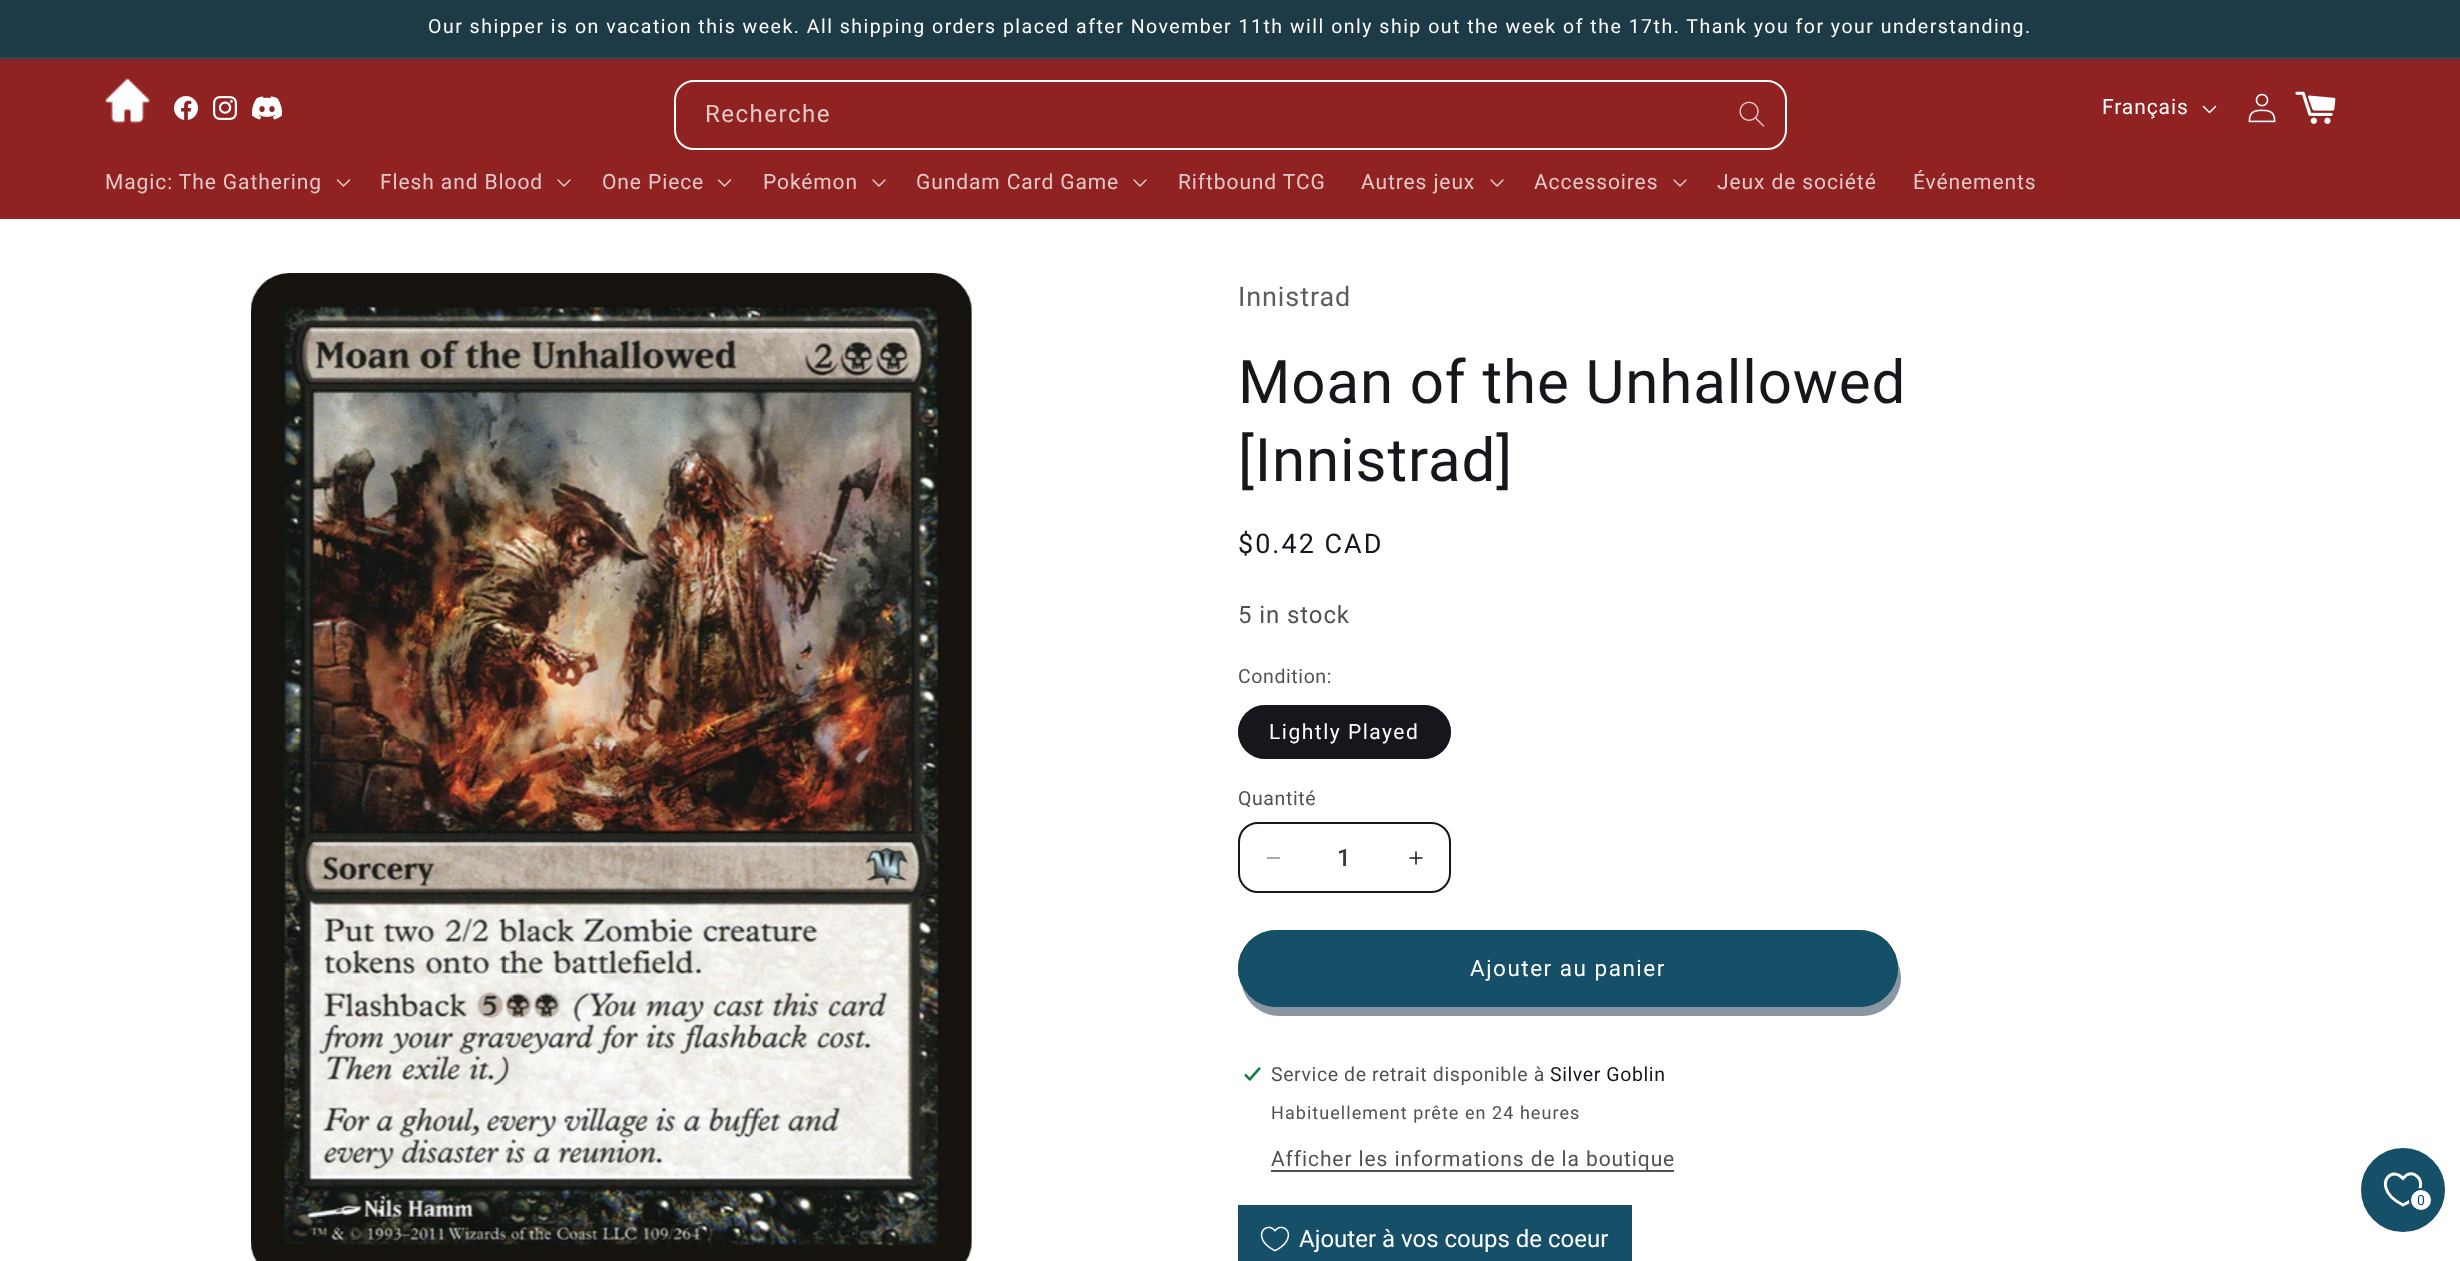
async function draw(canvas) {
  canvas.width = 2460
  canvas.height = 1261
  const ctx = canvas.getContext('2d')
  ctx.miterLimit = 4
  ctx.fontKerning = 'normal'
  async function loadImage(src) {
    const img = new Image()
    img.src = src
    await img.decode()
    return img
  }

  ctx.fillStyle = '#fff'
  ctx.fillRect(0, 0, 2460, 1261)
  ctx.fillStyle = '#1d3b46'
  ctx.fillRect(0, 0, 2460, 57)
  ctx.fillStyle = '#2f4b55'
  ctx.fillRect(0, 57, 2460, 2)
  ctx.letterSpacing = '1.5px'
  ctx.font = '19.5px Roboto'
  ctx.fillStyle = '#fff'
  ctx.fillText('Our shipper is on vacation this week. All shipping orders placed after November 11th will only ship out the week of the 17th. Thank you for your understanding.', 428, 33)
  ctx.fillStyle = '#902222'
  ctx.fillRect(0, 59, 2460, 160)
  ctx.drawImage(await loadImage('image0.png'), 105, 78, 45, 46)
  ctx.drawImage(await loadImage('image1.png'), 174, 96, 24, 24)
  ctx.drawImage(await loadImage('image2.png'), 213, 96, 24, 24)
  ctx.drawImage(await loadImage('image3.png'), 252, 96, 30, 24)
  ctx.drawImage(await loadImage('image4.png'), 1739, 101, 26, 26)
  ctx.beginPath()
  ctx.roundRect(675, 81, 1111, 68, 19)
  ctx.strokeStyle = '#fff'
  ctx.lineWidth = 2
  ctx.stroke()
  ctx.font = '24px Roboto'
  ctx.fillStyle = '#e3c8c8'
  ctx.fillText('Recherche', 705, 122)
  ctx.letterSpacing = '0.9px'
  ctx.font = '21px Roboto'
  ctx.fillStyle = '#fff'
  ctx.fillText('Français', 2102, 114)
  ctx.drawImage(await loadImage('image5.png'), 2202, 105, 15, 9)
  ctx.drawImage(await loadImage('image6.png'), 2248, 93, 28, 30)
  ctx.drawImage(await loadImage('image7.png'), 2295, 91, 41, 33)
  ctx.fillStyle = '#e3c8c8'
  ctx.fillText('Magic: The Gathering', 105, 189)
  ctx.drawImage(await loadImage('image8.png'), 336, 179, 15, 8)
  ctx.fillText('Flesh and Blood', 380, 189)
  ctx.drawImage(await loadImage('image9.png'), 557, 179, 14, 8)
  ctx.fillText('One Piece', 602, 189)
  ctx.drawImage(await loadImage('image8.png'), 717, 179, 15, 8)
  ctx.fillText('Pokémon', 763, 189)
  ctx.drawImage(await loadImage('image9.png'), 872, 179, 14, 8)
  ctx.fillText('Gundam Card Game', 916, 189)
  ctx.drawImage(await loadImage('image9.png'), 1133, 179, 14, 8)
  ctx.fillText('Riftbound TCG', 1178, 189)
  ctx.fillText('Autres jeux', 1361, 189)
  ctx.drawImage(await loadImage('image9.png'), 1490, 179, 14, 8)
  ctx.fillText('Accessoires', 1534, 189)
  ctx.drawImage(await loadImage('image9.png'), 1673, 179, 14, 8)
  ctx.fillText('Jeux de société', 1717, 189)
  ctx.fillText('Événements', 1913, 189)
  ctx.drawImage(await loadImage('image10.png'), 251, 273, 721, 988)
  ctx.font = '27px Roboto'
  ctx.fillStyle = '#5c5d60'
  ctx.fillText('Innistrad', 1238, 306)
  ctx.font = '60px Roboto'
  ctx.fillStyle = '#16171c'
  ctx.fillText('Moan of the Unhallowed', 1238, 403)
  ctx.fillText('[Innistrad]', 1238, 481)
  ctx.letterSpacing = '2px'
  ctx.font = '27px Roboto'
  ctx.fillText('$0.42 CAD', 1238, 553)
  ctx.letterSpacing = '0.9px'
  ctx.font = '24px Roboto'
  ctx.fillStyle = '#505155'
  ctx.fillText('5 in stock', 1238, 623)
  ctx.letterSpacing = '0.6px'
  ctx.font = '19.5px Roboto'
  ctx.fillText('Condition:', 1238, 683)
  ctx.fillStyle = '#16171c'
  ctx.beginPath()
  ctx.roundRect(1238, 705, 213, 54, 27)
  ctx.fill()
  ctx.beginPath()
  ctx.roundRect(1239, 706, 211, 52, 26)
  ctx.strokeStyle = '#16171c80'
  ctx.stroke()
  ctx.letterSpacing = '1.5px'
  ctx.font = '21px Roboto'
  ctx.fillStyle = '#fff'
  ctx.fillText('Lightly Played', 1269, 739)
  ctx.letterSpacing = '0.6px'
  ctx.font = '19.5px Roboto'
  ctx.fillStyle = '#505155'
  ctx.fillText('Quantité', 1238, 805)
  ctx.drawImage(await loadImage('image11.png'), 1266, 857, 15, 2)
  ctx.drawImage(await loadImage('image12.png'), 1409, 851, 14, 14)
  ctx.beginPath()
  ctx.roundRect(1239, 823, 211, 69, 19)
  ctx.strokeStyle = '#16171c'
  ctx.stroke()
  ctx.letterSpacing = '0px'
  ctx.font = '500 24px Roboto'
  ctx.fillStyle = '#393a3e'
  ctx.fillText('1', 1337, 866)
  ctx.fillStyle = '#8a97a3'
  ctx.beginPath()
  ctx.moveTo(1242, 986)
  ctx.bezierCurveTo(1246, 1003, 1261, 1016, 1280, 1016)
  ctx.lineTo(1862, 1016)
  ctx.bezierCurveTo(1884, 1016, 1901, 999, 1901, 978)
  ctx.bezierCurveTo(1901, 971, 1899, 965, 1896, 959)
  ctx.bezierCurveTo(1897, 962, 1898, 965, 1898, 968)
  ctx.bezierCurveTo(1898, 989, 1880, 1006, 1859, 1006)
  ctx.lineTo(1276, 1006)
  ctx.bezierCurveTo(1261, 1006, 1248, 998, 1242, 986)
  ctx.closePath()
  ctx.fill()
  ctx.fillStyle = '#165068'
  ctx.beginPath()
  ctx.roundRect(1238, 930, 660, 77, 38.5)
  ctx.fill()
  ctx.beginPath()
  ctx.roundRect(1240.5, 932.5, 655, 72, 36)
  ctx.strokeStyle = '#165068'
  ctx.lineWidth = 5
  ctx.stroke()
  ctx.letterSpacing = '1.5px'
  ctx.font = '22.5px Roboto'
  ctx.fillStyle = '#fff'
  ctx.fillText('Ajouter au panier', 1470, 976)
  ctx.drawImage(await loadImage('image13.png'), 1243, 1067, 18, 14)
  ctx.letterSpacing = '0.6px'
  ctx.font = '19.5px Roboto'
  ctx.fillStyle = '#505155'
  ctx.fillText('Service de retrait disponible à', 1271, 1081)
  ctx.fillStyle = '#16171c'
  ctx.fillText('Silver Goblin', 1550, 1081)
  ctx.letterSpacing = '1.05px'
  ctx.font = '18px Roboto'
  ctx.fillStyle = '#505155'
  ctx.fillText('Habituellement prête en 24 heures', 1271, 1119)
  ctx.fillRect(1271, 1170, 403, 2)
  ctx.letterSpacing = '0.9px'
  ctx.font = '21px Roboto'
  ctx.fillText('Afficher les informations de la boutique', 1271, 1166)
  ctx.fillStyle = '#165068'
  ctx.fillRect(1238, 1205, 394, 56)
  ctx.drawImage(await loadImage('image14.png'), 1260, 1226, 30, 26)
  ctx.letterSpacing = '0px'
  ctx.font = '24px Roboto'
  ctx.fillStyle = '#fff'
  ctx.fillText('Ajouter à vos coups de coeur', 1299, 1247)
  ctx.fillStyle = '#165068'
  ctx.beginPath()
  ctx.arc(2403, 1190, 40.5, 0, 2 * Math.PI)
  ctx.fill()
  ctx.lineWidth = 3
  ctx.stroke()
  ctx.beginPath()
  ctx.moveTo(2403, 1205)
  ctx.bezierCurveTo(2396, 1201.5, 2388, 1196, 2386, 1188)
  ctx.bezierCurveTo(2383.5, 1180, 2389.5, 1171, 2398.5, 1175)
  ctx.bezierCurveTo(2400, 1175.5, 2401.5, 1177, 2403, 1178.5)
  ctx.bezierCurveTo(2404.5, 1177, 2405.5, 1175.5, 2407.5, 1174.5)
  ctx.bezierCurveTo(2415, 1171.5, 2421.5, 1178.5, 2420.5, 1186)
  ctx.bezierCurveTo(2419.5, 1195, 2410.5, 1201.5, 2403, 1205)
  ctx.closePath()
  ctx.strokeStyle = '#fff'
  ctx.stroke()
  ctx.fillStyle = '#fff'
  ctx.beginPath()
  ctx.arc(2421, 1200, 11, 0, 2 * Math.PI)
  ctx.fill()
  ctx.strokeStyle = '#165068'
  ctx.lineWidth = 2
  ctx.stroke()
  ctx.letterSpacing = '0.9px'
  ctx.font = '14px Roboto'
  ctx.fillStyle = '#165068'
  ctx.fillText('0', 2417, 1205)
}

draw(document.querySelector('canvas'))
